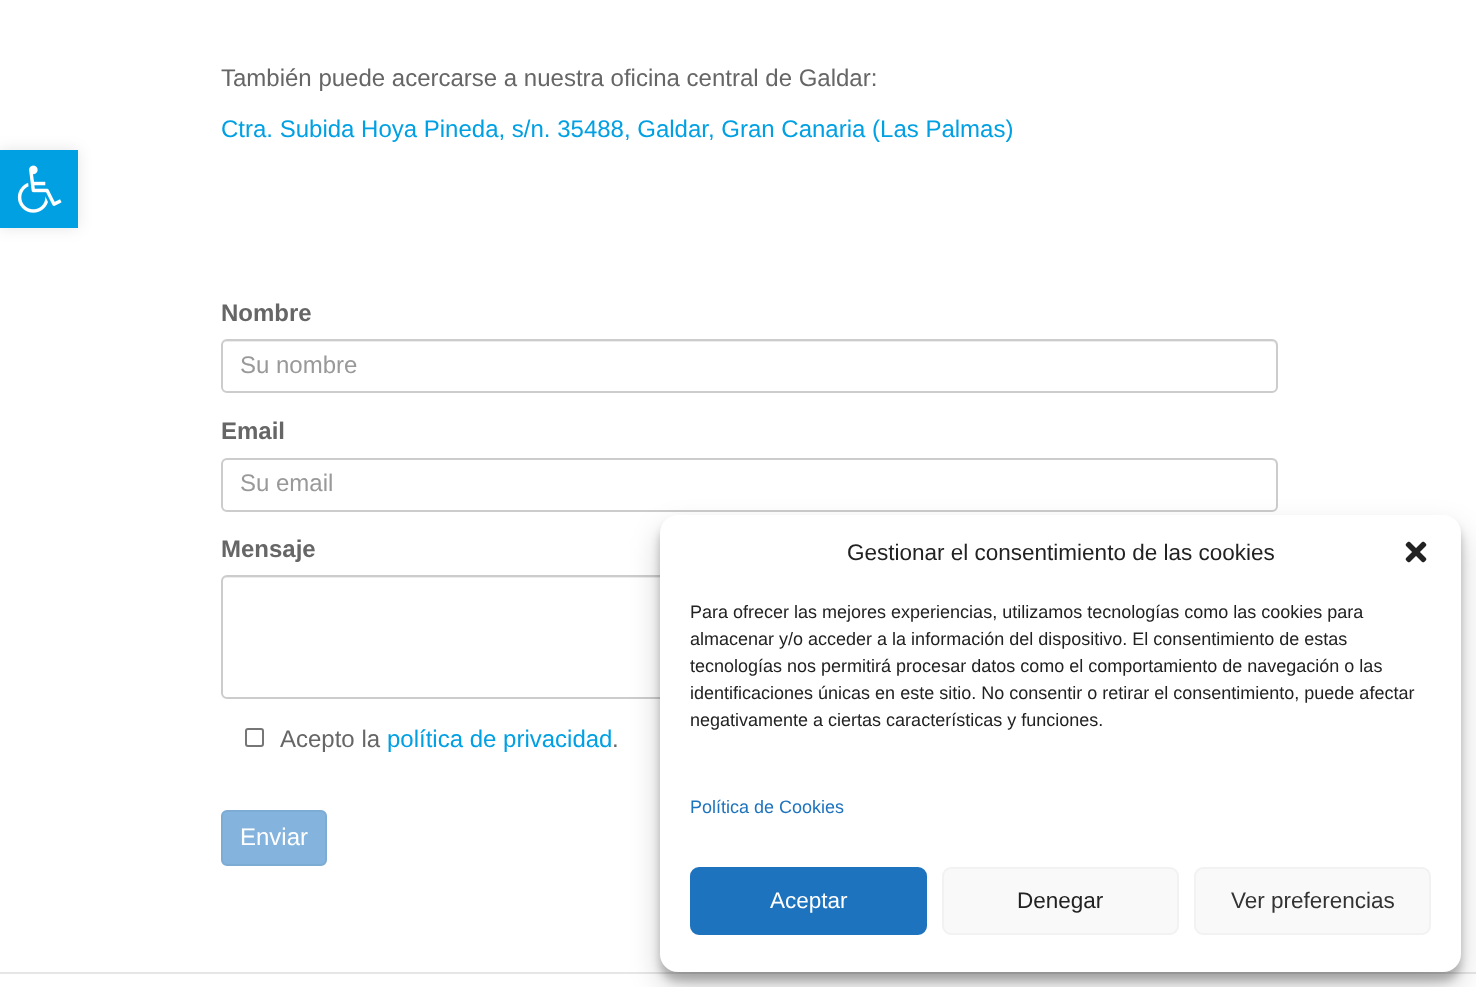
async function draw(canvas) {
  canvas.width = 1476
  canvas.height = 987
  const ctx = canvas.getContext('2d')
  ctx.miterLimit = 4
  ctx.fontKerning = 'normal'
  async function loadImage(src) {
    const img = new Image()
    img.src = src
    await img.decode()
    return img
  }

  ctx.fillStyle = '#fff'
  ctx.fillRect(0, 0, 1476, 987)
  ctx.fillStyle = '#0000001a'
  ctx.filter = 'blur(7.5px)'
  ctx.beginPath()
  ctx.rect(0, 150, 78, 78)
  ctx.fill()
  ctx.filter = 'none'
  ctx.fillStyle = '#00a0e3'
  ctx.fillRect(0, 150, 78, 78)
  ctx.drawImage(await loadImage('image0.png'), 17, 165, 45, 48)
  ctx.font = '24px Liberation Sans'
  ctx.fillStyle = '#666'
  ctx.fillText('También puede acercarse a nuestra oficina central de Galdar:', 221, 86)
  ctx.fillStyle = '#00a0e3'
  ctx.fillText('Ctra. Subida Hoya Pineda, s/n. 35488, Galdar, Gran Canaria (Las Palmas)', 221, 137)
  ctx.font = 'bold 24px Liberation Sans'
  ctx.fillStyle = '#666'
  ctx.fillText('Nombre', 221, 321)
  ctx.fillStyle = '#ececec'
  ctx.beginPath()
  ctx.moveTo(226, 342)
  ctx.lineTo(1272, 342)
  ctx.bezierCurveTo(1274, 342, 1276, 344, 1276, 346)
  ctx.lineTo(1276, 388)
  ctx.lineTo(1275, 391)
  ctx.bezierCurveTo(1276, 390, 1277, 388, 1277, 387)
  ctx.lineTo(1277, 346)
  ctx.bezierCurveTo(1277, 343, 1275, 341, 1272, 341)
  ctx.lineTo(227, 341)
  ctx.bezierCurveTo(224, 341, 222, 343, 222, 346)
  ctx.bezierCurveTo(222, 344, 224, 342, 226, 342)
  ctx.closePath()
  ctx.fill()
  ctx.beginPath()
  ctx.roundRect(222, 340, 1055, 52, 5)
  ctx.strokeStyle = '#ccc'
  ctx.lineWidth = 2
  ctx.stroke()
  ctx.font = '24px Liberation Sans'
  ctx.fillStyle = '#999'
  ctx.fillText('Su nombre', 240, 373)
  ctx.font = 'bold 24px Liberation Sans'
  ctx.fillStyle = '#666'
  ctx.fillText('Email', 221, 439)
  ctx.fillStyle = '#ececec'
  ctx.beginPath()
  ctx.moveTo(226, 460)
  ctx.lineTo(1272, 460)
  ctx.bezierCurveTo(1274, 460, 1276, 463, 1276, 465)
  ctx.lineTo(1276, 508)
  ctx.bezierCurveTo(1277, 507, 1277, 506, 1277, 505)
  ctx.lineTo(1277, 464)
  ctx.bezierCurveTo(1277, 461, 1275, 459, 1272, 459)
  ctx.lineTo(227, 459)
  ctx.bezierCurveTo(224, 459, 222, 461, 222, 464)
  ctx.lineTo(222, 465)
  ctx.bezierCurveTo(222, 463, 224, 460, 226, 460)
  ctx.closePath()
  ctx.fill()
  ctx.beginPath()
  ctx.roundRect(222, 459, 1055, 52, 5)
  ctx.stroke()
  ctx.font = '24px Liberation Sans'
  ctx.fillStyle = '#999'
  ctx.fillText('Su email', 240, 491)
  ctx.font = 'bold 24px Liberation Sans'
  ctx.fillStyle = '#666'
  ctx.fillText('Mensaje', 221, 557)
  ctx.fillStyle = '#ececec'
  ctx.beginPath()
  ctx.moveTo(226, 578)
  ctx.lineTo(1272, 578)
  ctx.bezierCurveTo(1274, 578, 1276, 580, 1276, 582)
  ctx.lineTo(1276, 694)
  ctx.lineTo(1275, 697)
  ctx.bezierCurveTo(1276, 696, 1277, 694, 1277, 693)
  ctx.lineTo(1277, 581)
  ctx.bezierCurveTo(1277, 578, 1275, 576, 1272, 576)
  ctx.lineTo(227, 576)
  ctx.bezierCurveTo(224, 576, 222, 578, 222, 581)
  ctx.lineTo(222, 582)
  ctx.bezierCurveTo(222, 580, 224, 578, 226, 578)
  ctx.closePath()
  ctx.fill()
  ctx.beginPath()
  ctx.roundRect(222, 576, 1055, 122, 5)
  ctx.stroke()
  ctx.beginPath()
  ctx.roundRect(246, 729, 17, 17, 2)
  ctx.strokeStyle = '#767676'
  ctx.stroke()
  ctx.font = '24px Liberation Sans'
  ctx.fillStyle = '#666'
  ctx.fillText('Acepto la', 280, 747)
  ctx.fillStyle = '#00a0e3'
  ctx.fillText('política de privacidad', 387, 747)
  ctx.fillStyle = '#666'
  ctx.fillText('.', 612, 747)
  ctx.fillStyle = '#84b4dd'
  ctx.beginPath()
  ctx.roundRect(222, 811, 104, 54, 5)
  ctx.fill()
  ctx.strokeStyle = '#7cabd4'
  ctx.stroke()
  ctx.fillStyle = '#fff'
  ctx.fillText('Enviar', 240, 845)
  ctx.fillStyle = '#e6e6e6'
  ctx.fillRect(0, 972, 1476, 2)
  ctx.fillStyle = '#0000003b'
  ctx.filter = 'blur(4.5px)'
  ctx.beginPath()
  ctx.roundRect(660, 524, 801, 457, 18)
  ctx.fill()
  ctx.filter = 'none'
  ctx.fillStyle = '#00000030'
  ctx.filter = 'blur(15px)'
  ctx.beginPath()
  ctx.roundRect(660, 530, 801, 457, 18)
  ctx.fill()
  ctx.filter = 'none'
  ctx.fillStyle = '#fff'
  ctx.beginPath()
  ctx.roundRect(660, 515, 801, 457, 18)
  ctx.fill()
  ctx.font = '22.5px Liberation Sans'
  ctx.fillStyle = '#222'
  ctx.fillText('Gestionar el consentimiento de las cookies', 847, 560)
  ctx.drawImage(await loadImage('image1.png'), 1405, 541, 22, 22)
  ctx.font = '18px Liberation Sans'
  ctx.fillText('Para ofrecer las mejores experiencias, utilizamos tecnologías como las cookies para', 690, 618)
  ctx.fillText('almacenar y/o acceder a la información del dispositivo. El consentimiento de estas', 690, 645)
  ctx.fillText('tecnologías nos permitirá procesar datos como el comportamiento de navegación o las', 690, 672)
  ctx.fillText('identificaciones únicas en este sitio. No consentir o retirar el consentimiento, puede afectar', 690, 699)
  ctx.fillText('negativamente a ciertas características y funciones.', 690, 726)
  ctx.fillStyle = '#1e73be'
  ctx.fillText('Política de Cookies', 690, 813)
  ctx.beginPath()
  ctx.roundRect(691, 868, 235, 66, 8)
  ctx.fill()
  ctx.strokeStyle = '#1e73be'
  ctx.stroke()
  ctx.font = '22.5px Liberation Sans'
  ctx.fillStyle = '#fff'
  ctx.fillText('Aceptar', 770, 908)
  ctx.fillStyle = '#f9f9f9'
  ctx.beginPath()
  ctx.roundRect(943, 868, 235, 66, 8)
  ctx.fill()
  ctx.strokeStyle = '#f2f2f2'
  ctx.stroke()
  ctx.fillStyle = '#222'
  ctx.fillText('Denegar', 1017, 908)
  ctx.fillStyle = '#f9f9f9'
  ctx.beginPath()
  ctx.roundRect(1195, 868, 235, 66, 8)
  ctx.fill()
  ctx.stroke()
  ctx.fillStyle = '#333'
  ctx.fillText('Ver preferencias', 1231, 908)
}

draw(document.querySelector('canvas'))
